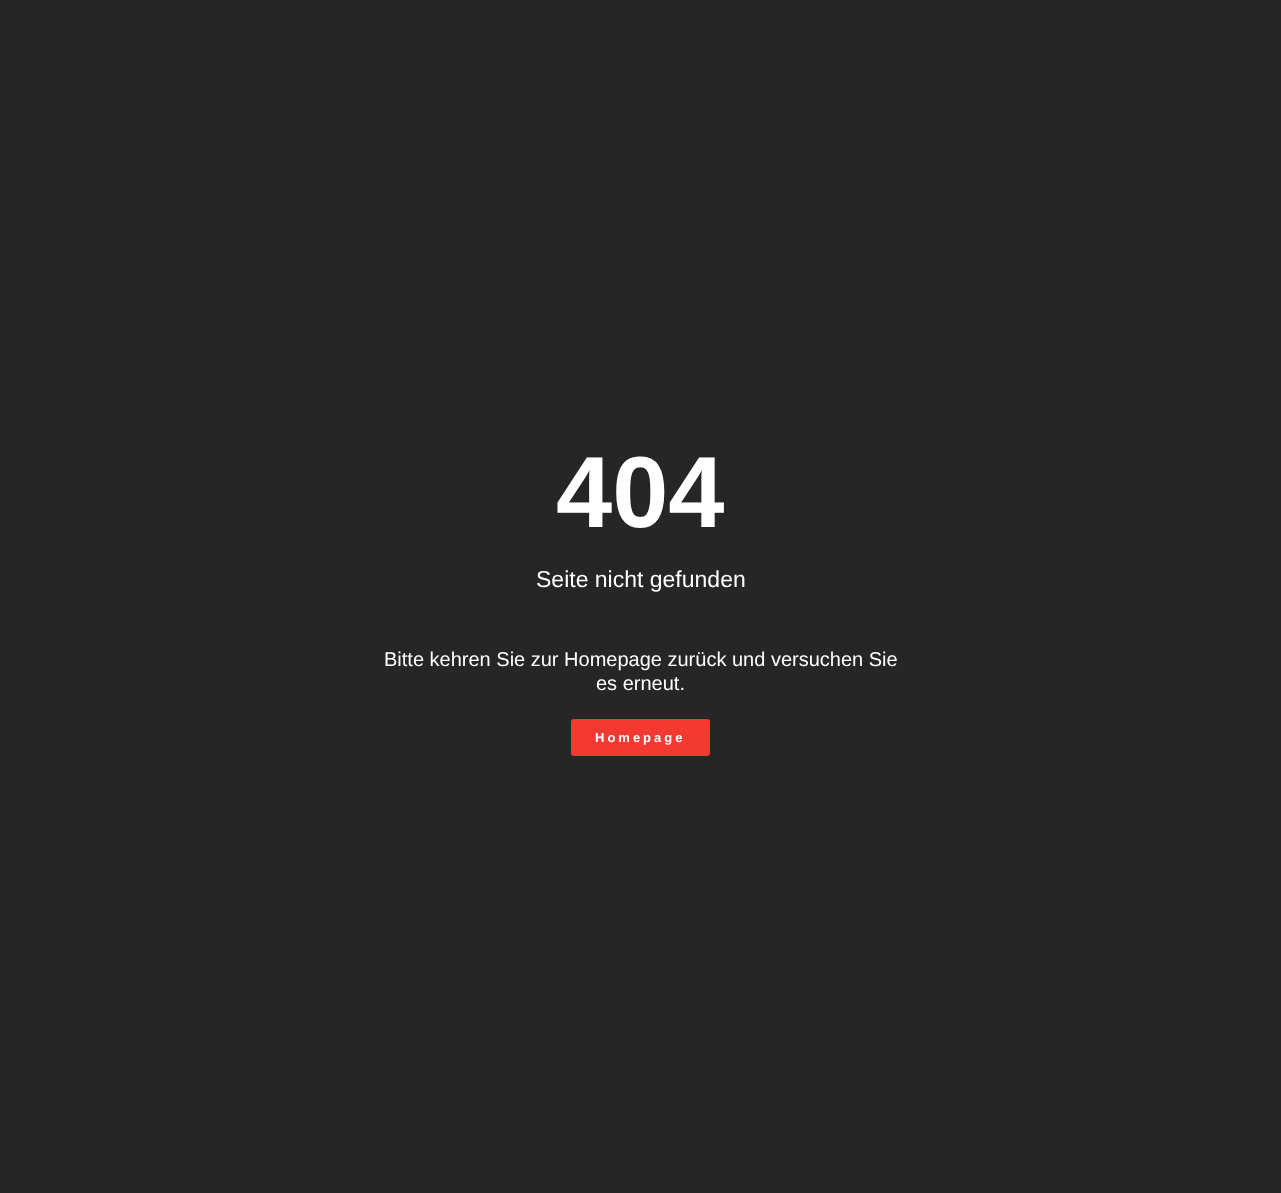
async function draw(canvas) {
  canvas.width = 1281
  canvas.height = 1193
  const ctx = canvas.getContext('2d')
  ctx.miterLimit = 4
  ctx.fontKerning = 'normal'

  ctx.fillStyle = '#262626'
  ctx.fillRect(0, 0, 1281, 1193)
  ctx.font = 'bold 101px Liberation Sans'
  ctx.fillStyle = '#fff'
  ctx.fillText('404', 556, 527)
  ctx.font = '23px Liberation Sans'
  ctx.fillText('Seite nicht gefunden', 536, 587)
  ctx.font = '20px Liberation Sans'
  ctx.fillText('Bitte kehren Sie zur Homepage zurück und versuchen Sie', 384, 666)
  ctx.fillText('es erneut.', 596, 690)
  ctx.fillStyle = '#f43930'
  ctx.beginPath()
  ctx.roundRect(571, 719, 139, 37, 3)
  ctx.fill()
  ctx.letterSpacing = '3px'
  ctx.font = 'bold 13px Liberation Sans'
  ctx.fillStyle = '#fff'
  ctx.fillText('Homepage', 595, 742)
}

draw(document.querySelector('canvas'))
